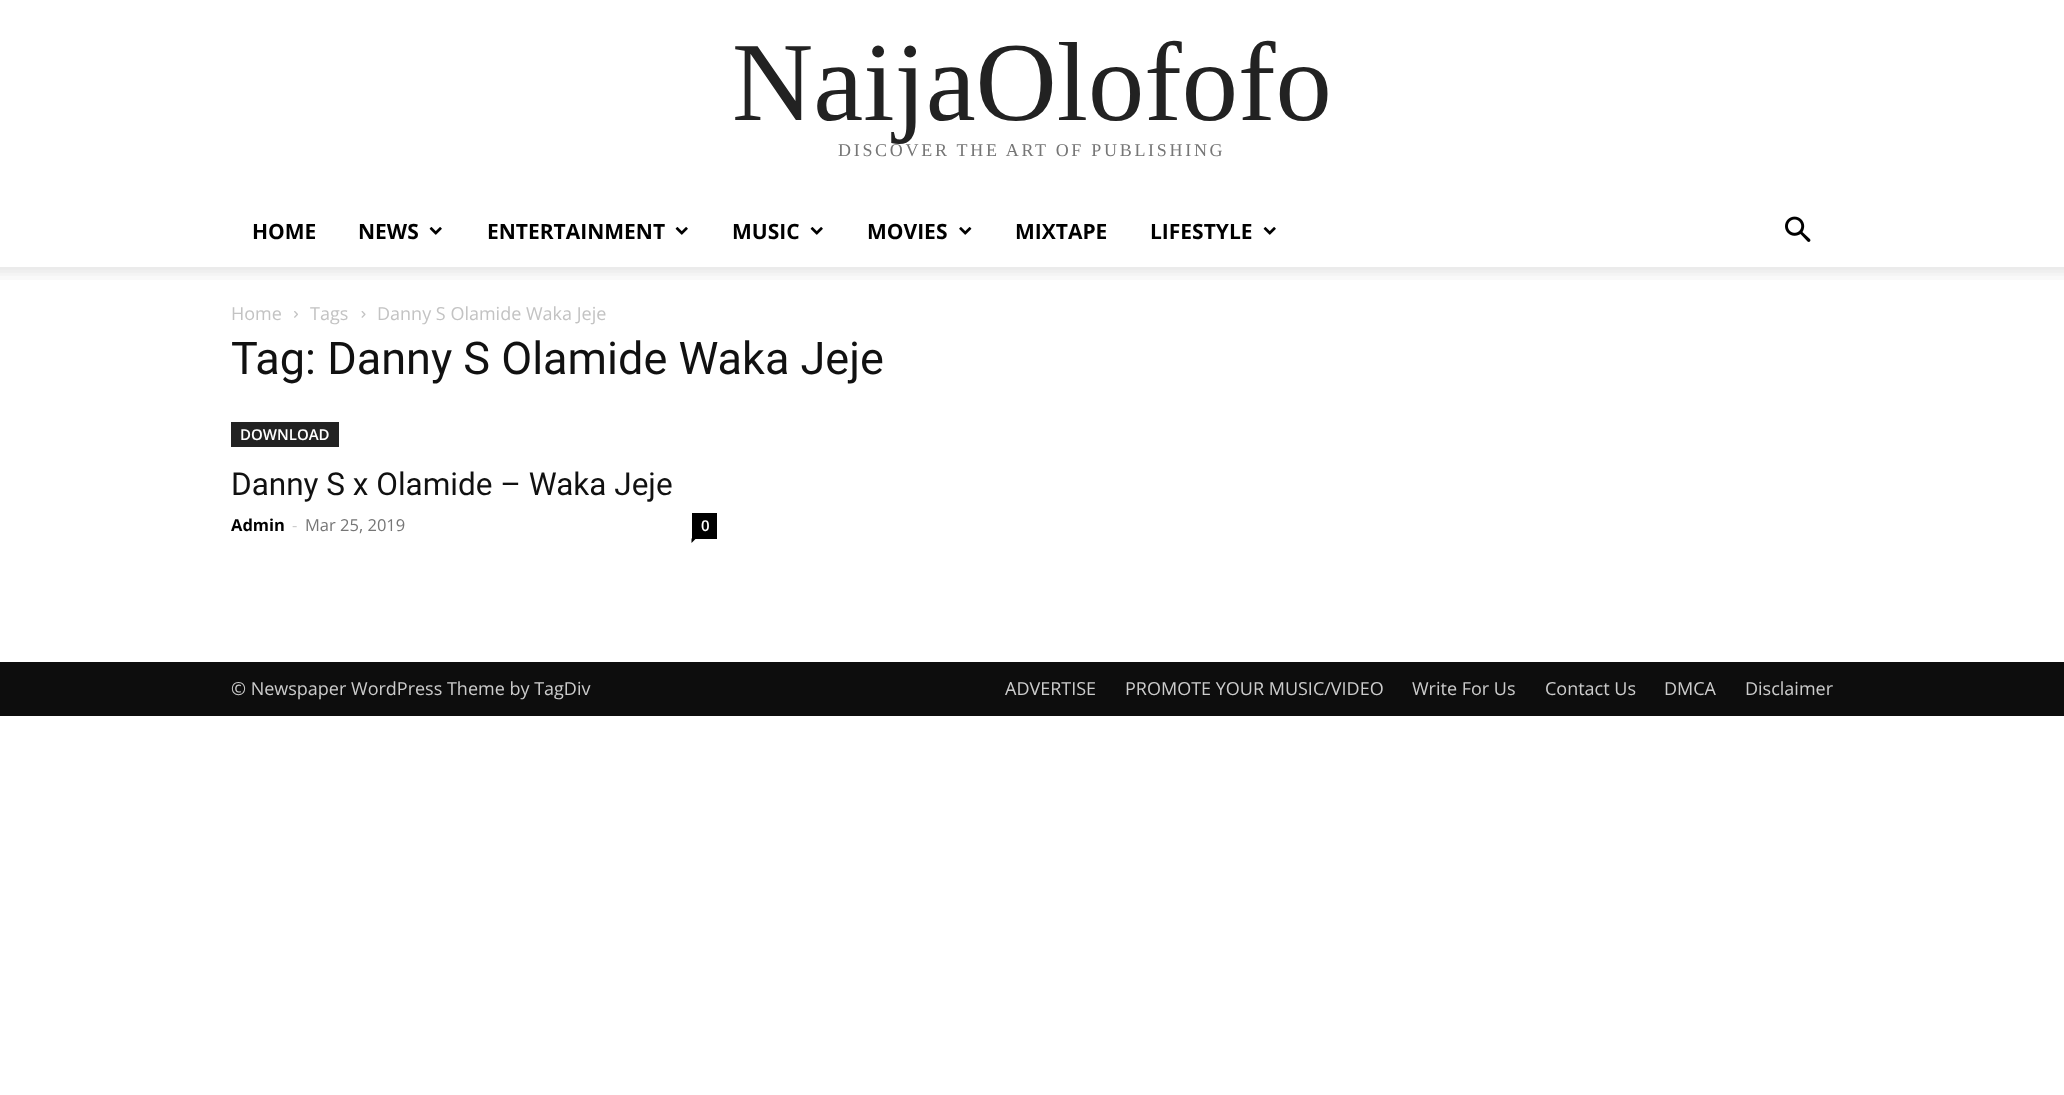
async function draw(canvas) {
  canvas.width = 2064
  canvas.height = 1095
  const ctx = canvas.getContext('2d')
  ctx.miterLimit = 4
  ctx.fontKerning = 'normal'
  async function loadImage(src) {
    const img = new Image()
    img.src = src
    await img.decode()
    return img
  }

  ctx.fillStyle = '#fff'
  ctx.fillRect(0, 0, 2064, 1095)
  ctx.font = '112.5px Liberation Serif'
  ctx.fillStyle = '#222'
  ctx.fillText('NaijaOlofofo', 732, 120)
  ctx.letterSpacing = '2.7px'
  ctx.font = '18px Liberation Serif'
  ctx.fillStyle = '#767676'
  ctx.fillText('DISCOVER THE ART OF PUBLISHING', 838, 156)
  ctx.letterSpacing = '0px'
  ctx.font = 'bold 21px Open Sans'
  ctx.fillStyle = '#000'
  ctx.fillText('HOME', 252, 239)
  ctx.fillText('NEWS', 358, 239)
  ctx.drawImage(await loadImage('image0.png'), 429, 227, 13, 8)
  ctx.fillText('ENTERTAINMENT', 487, 239)
  ctx.drawImage(await loadImage('image0.png'), 675, 227, 13, 8)
  ctx.fillText('MUSIC', 732, 239)
  ctx.drawImage(await loadImage('image0.png'), 810, 227, 13, 8)
  ctx.fillText('MOVIES', 867, 239)
  ctx.drawImage(await loadImage('image1.png'), 959, 227, 13, 8)
  ctx.fillText('MIXTAPE', 1015, 239)
  ctx.fillText('LIFESTYLE', 1150, 239)
  ctx.drawImage(await loadImage('image0.png'), 1263, 227, 13, 8)
  ctx.drawImage(await loadImage('image2.png'), 1785, 216, 26, 26)
  ctx.drawImage(await loadImage('image3.png'), 0, 267, 2064, 13)
  ctx.font = '18px Open Sans'
  ctx.fillStyle = '#c3c3c3'
  ctx.fillText('Home', 231, 320)
  ctx.drawImage(await loadImage('image4.png'), 294, 311, 4, 7)
  ctx.fillText('Tags', 310, 320)
  ctx.drawImage(await loadImage('image5.png'), 361, 311, 5, 7)
  ctx.fillText('Danny S Olamide Waka Jeje', 377, 320)
  ctx.font = '45px Roboto'
  ctx.fillStyle = '#111'
  ctx.fillText('Tag: Danny S Olamide Waka Jeje', 231, 374)
  ctx.fillStyle = '#222'
  ctx.fillRect(231, 422, 108, 25)
  ctx.font = '600 15px Open Sans'
  ctx.fillStyle = '#fff'
  ctx.fillText('DOWNLOAD', 240, 440)
  ctx.font = '31.5px Roboto'
  ctx.fillStyle = '#111'
  ctx.fillText('Danny S x Olamide – Waka Jeje', 231, 495)
  ctx.font = 'bold 16.5px Open Sans'
  ctx.fillStyle = '#000'
  ctx.fillText('Admin', 231, 531)
  ctx.font = '16.5px Open Sans'
  ctx.fillStyle = '#ccc'
  ctx.fillText('-', 292, 531)
  ctx.fillStyle = '#767676'
  ctx.fillText('Mar 25, 2019', 305, 531)
  ctx.fillStyle = '#000'
  ctx.fillRect(692, 513, 25, 26)
  ctx.font = '600 15px Open Sans'
  ctx.fillStyle = '#fff'
  ctx.fillText('0', 701, 531)
  ctx.fillStyle = '#000'
  ctx.beginPath()
  ctx.moveTo(691.5, 538.5)
  ctx.lineTo(696, 538.5)
  ctx.lineTo(691.5, 543)
  ctx.closePath()
  ctx.fill()
  ctx.fillStyle = '#0d0d0d'
  ctx.fillRect(0, 662, 2064, 54)
  ctx.font = '18px Open Sans'
  ctx.fillStyle = '#ccc'
  ctx.fillText('© Newspaper WordPress Theme by TagDiv', 231, 695)
  ctx.fillText('ADVERTISE', 1005, 695)
  ctx.fillText('PROMOTE YOUR MUSIC/VIDEO', 1125, 695)
  ctx.fillText('Write For Us', 1412, 695)
  ctx.fillText('Contact Us', 1545, 695)
  ctx.fillText('DMCA', 1664, 695)
  ctx.fillText('Disclaimer', 1745, 695)
}

draw(document.querySelector('canvas'))
